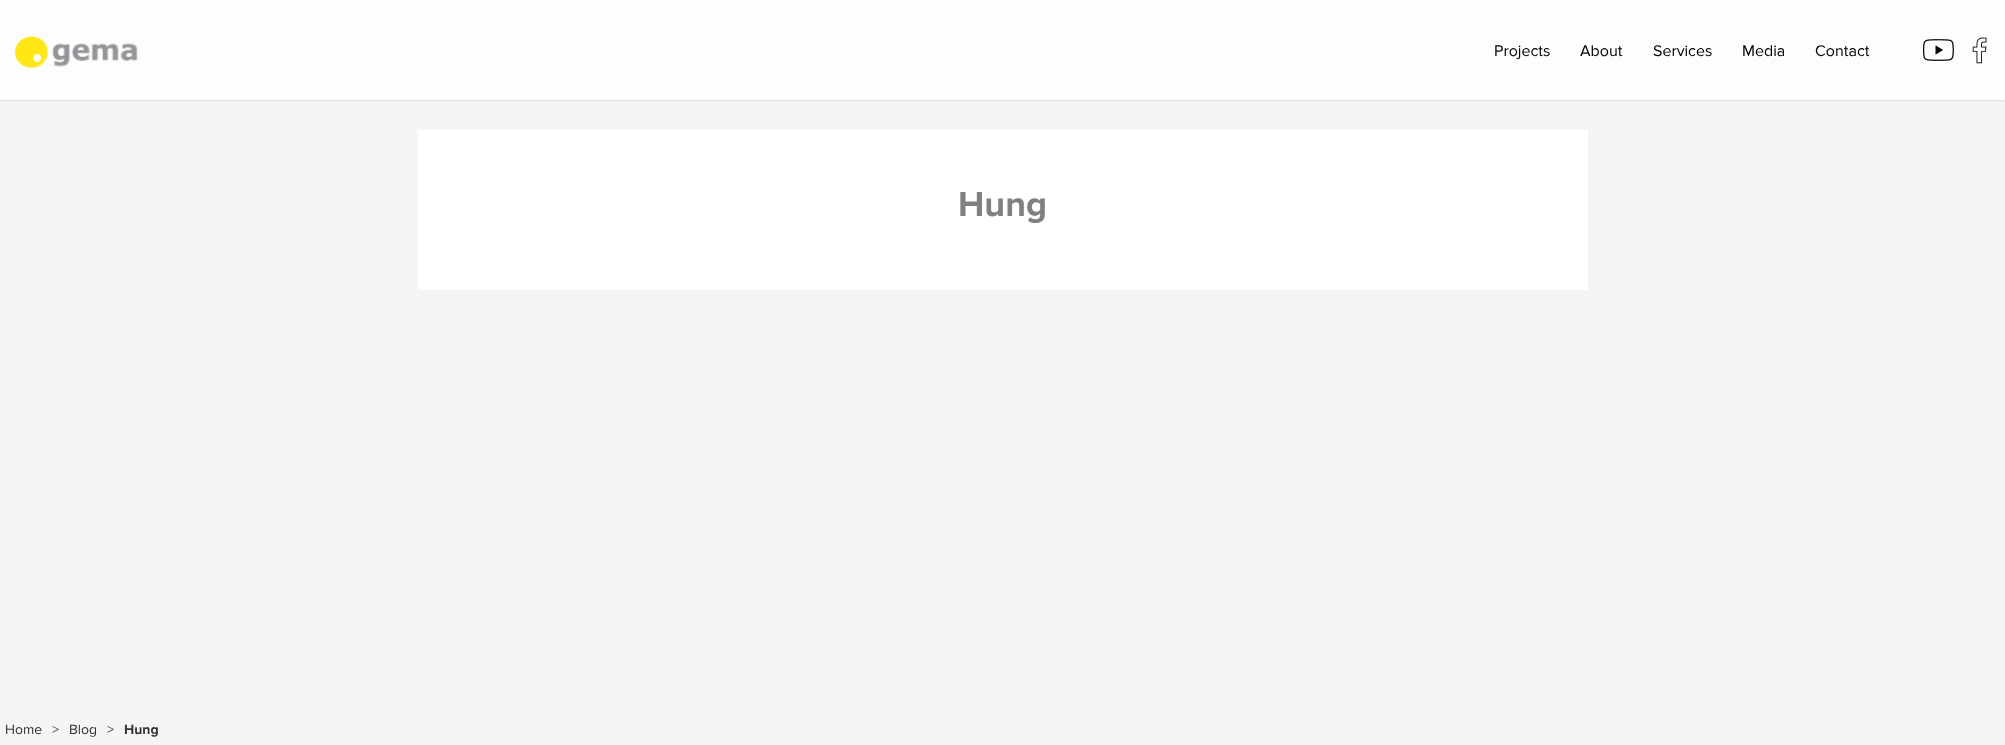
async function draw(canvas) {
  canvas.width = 2005
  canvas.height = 745
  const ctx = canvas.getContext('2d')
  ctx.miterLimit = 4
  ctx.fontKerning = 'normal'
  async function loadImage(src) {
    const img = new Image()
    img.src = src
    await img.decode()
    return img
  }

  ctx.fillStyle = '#f5f5f5'
  ctx.fillRect(0, 0, 2005, 745)
  ctx.fillStyle = '#fdfdfd'
  ctx.fillRect(0, 0, 2005, 100)
  ctx.save()
  ctx.beginPath()
  ctx.rect(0, 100, 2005, 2)
  ctx.clip()
  ctx.fillStyle = '#00000038'
  ctx.filter = 'blur(1.5px)'
  ctx.beginPath()
  ctx.rect(0, 0, 2005, 100)
  ctx.fill()
  ctx.filter = 'none'
  ctx.restore()
  ctx.drawImage(await loadImage('image0.png'), 15, 36, 123, 33)
  ctx.font = '16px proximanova'
  ctx.fillStyle = '#000'
  ctx.fillText('Projects', 1494, 56)
  ctx.fillText('About', 1580, 56)
  ctx.fillText('Services', 1653, 56)
  ctx.fillText('Media', 1742, 56)
  ctx.fillText('Contact', 1815, 56)
  ctx.drawImage(await loadImage('image1.png'), 1923, 39, 31, 22)
  ctx.drawImage(await loadImage('image2.png'), 1972, 37, 15, 27)
  ctx.fillStyle = '#fff'
  ctx.fillRect(418, 130, 1170, 160)
  ctx.font = 'bold 36px proximanova'
  ctx.fillStyle = '#808081'
  ctx.fillText('Hung', 958, 216)
  ctx.font = '14px proximanova'
  ctx.fillStyle = '#333'
  ctx.fillText('Home', 5, 734)
  ctx.fillText('>', 52, 734)
  ctx.fillText('Blog', 69, 734)
  ctx.fillText('>', 107, 734)
  ctx.font = 'bold 14px proximanova'
  ctx.fillText('Hung', 124, 734)
}

draw(document.querySelector('canvas'))
